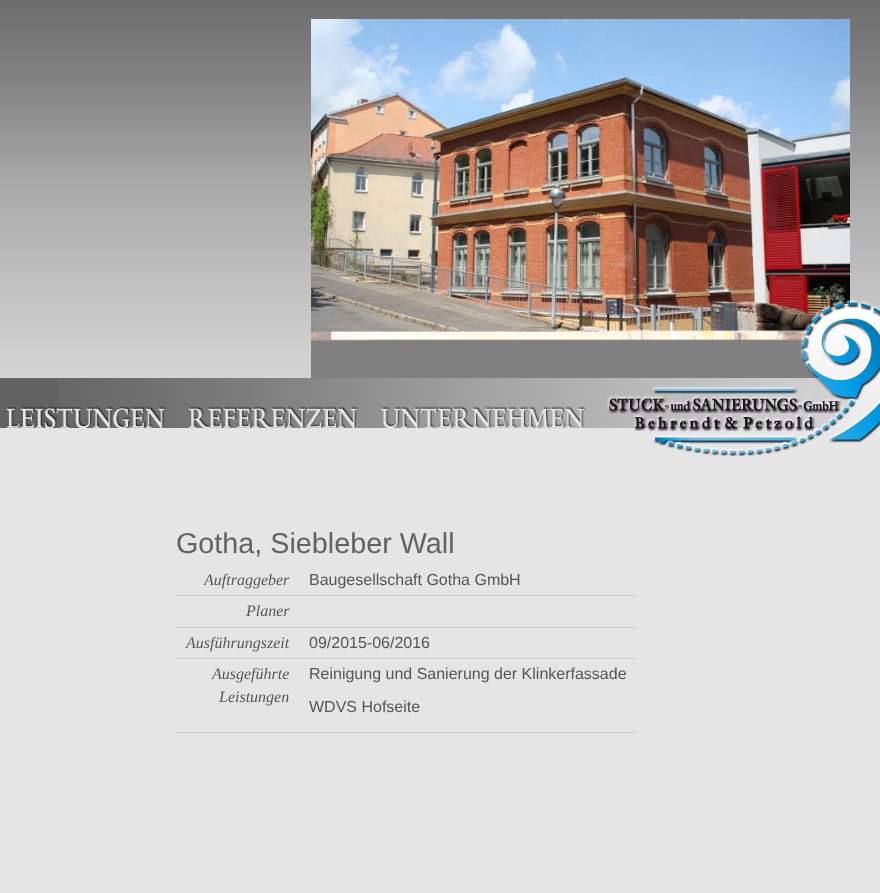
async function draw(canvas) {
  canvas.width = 880
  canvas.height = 893
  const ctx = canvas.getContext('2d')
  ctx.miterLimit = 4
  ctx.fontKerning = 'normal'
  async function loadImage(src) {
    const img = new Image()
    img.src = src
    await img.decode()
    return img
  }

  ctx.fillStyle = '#fff'
  ctx.fillRect(0, 0, 880, 893)
  ctx.drawImage(await loadImage('image0.png'), 0, 0, 880, 378)
  ctx.drawImage(await loadImage('image1.png'), 311, 19, 539, 359)
  ctx.fillStyle = '#626262'
  ctx.fillRect(0, 378, 58, 50)
  ctx.drawImage(await loadImage('image2.png'), 58, 378, 796, 50)
  ctx.drawImage(await loadImage('image3.png'), 6, 406, 160, 22)
  ctx.drawImage(await loadImage('image4.png'), 188, 406, 171, 22)
  ctx.drawImage(await loadImage('image5.png'), 381, 406, 205, 22)
  ctx.fillStyle = '#e5e5e5'
  ctx.fillRect(0, 428, 880, 465)
  ctx.drawImage(await loadImage('image6.png'), 607, 300, 273, 156)
  ctx.font = '28.75px Liberation Sans'
  ctx.fillStyle = '#626262'
  ctx.fillText('Gotha, Siebleber Wall', 176, 553)
  ctx.fillStyle = '#ccc'
  ctx.fillRect(176, 595, 461, 1)
  ctx.font = 'italic 16px Liberation Serif'
  ctx.fillStyle = '#555'
  ctx.fillText('Auftraggeber', 204, 585)
  ctx.font = '16px Liberation Sans'
  ctx.fillText('Baugesellschaft Gotha GmbH', 309, 585)
  ctx.fillStyle = '#ccc'
  ctx.fillRect(176, 627, 461, 1)
  ctx.font = 'italic 16px Liberation Serif'
  ctx.fillStyle = '#555'
  ctx.fillText('Planer', 246, 616)
  ctx.fillStyle = '#ccc'
  ctx.fillRect(176, 658, 461, 1)
  ctx.fillStyle = '#555'
  ctx.fillText('Ausführungszeit', 186, 648)
  ctx.font = '16px Liberation Sans'
  ctx.fillText('09/2015-06/2016', 309, 648)
  ctx.fillStyle = '#ccc'
  ctx.fillRect(176, 732, 461, 1)
  ctx.font = 'italic 16px Liberation Serif'
  ctx.fillStyle = '#555'
  ctx.fillText('Ausgeführte', 212, 679)
  ctx.fillText('Leistungen', 219, 702)
  ctx.font = '16px Liberation Sans'
  ctx.fillText('Reinigung und Sanierung der Klinkerfassade', 309, 679)
  ctx.fillText('WDVS Hofseite', 309, 712)
}

draw(document.querySelector('canvas'))
